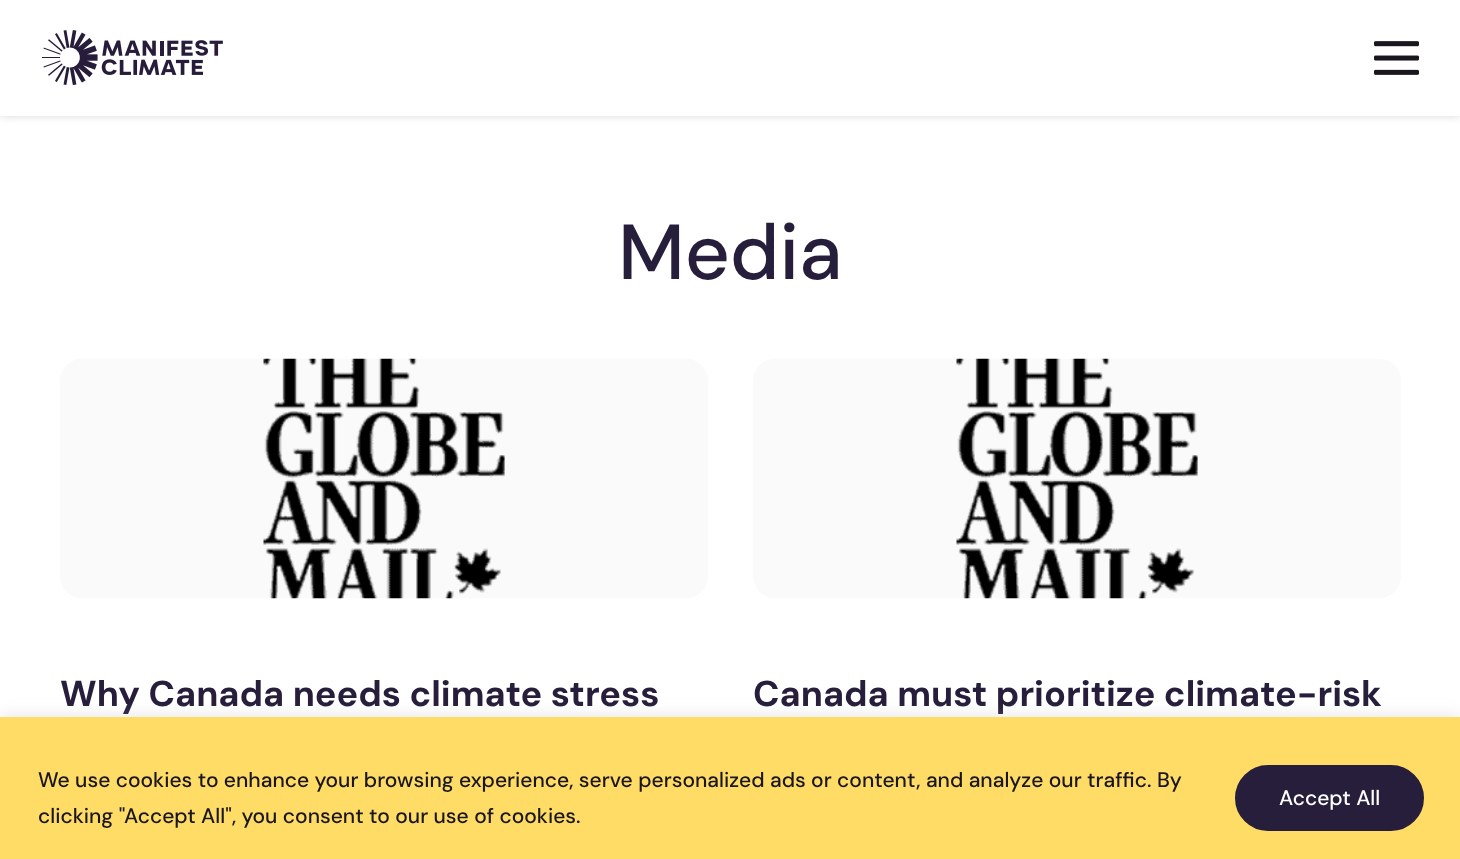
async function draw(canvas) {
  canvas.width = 1460
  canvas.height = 859
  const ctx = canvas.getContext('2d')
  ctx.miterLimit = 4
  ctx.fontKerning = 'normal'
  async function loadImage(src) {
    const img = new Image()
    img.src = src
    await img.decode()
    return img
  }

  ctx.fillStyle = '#fff'
  ctx.fillRect(0, 0, 1460, 859)
  ctx.fillStyle = '#00000026'
  ctx.filter = 'blur(4px)'
  ctx.beginPath()
  ctx.rect(0, 0, 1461, 116)
  ctx.fill()
  ctx.filter = 'none'
  ctx.fillStyle = '#fff'
  ctx.fillRect(0, 0, 1460, 116)
  ctx.drawImage(await loadImage('image0.png'), 42, 30, 181, 55)
  ctx.drawImage(await loadImage('image1.png'), 1374, 41, 45, 34)
  ctx.font = '500 78px DM Sans'
  ctx.fillStyle = '#271e3c'
  ctx.fillText('Media', 618, 279)
  ctx.drawImage(await loadImage('image2.png'), 60, 358, 648, 241)
  ctx.font = 'bold 36px DM Sans'
  ctx.fillText('Why Canada needs climate stress', 60, 706)
  ctx.drawImage(await loadImage('image3.png'), 753, 358, 648, 241)
  ctx.fillText('Canada must prioritize climate-risk', 753, 706)
  ctx.fillStyle = '#acabab4d'
  ctx.filter = 'blur(7.5px)'
  ctx.beginPath()
  ctx.rect(0, 716, 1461, 142)
  ctx.fill()
  ctx.filter = 'none'
  ctx.fillStyle = '#fedc65'
  ctx.fillRect(0, 717, 1460, 142)
  ctx.font = '500 21px DM Sans'
  ctx.fillStyle = '#1a161e'
  ctx.fillText('We use cookies to enhance your browsing experience, serve personalized ads or content, and analyze our traffic. By', 38, 787)
  ctx.fillText('clicking "Accept All", you consent to our use of cookies.', 38, 823)
  ctx.fillStyle = '#271e3c'
  ctx.beginPath()
  ctx.roundRect(1236.5, 766.5, 186, 63, 31.5)
  ctx.fill()
  ctx.strokeStyle = '#271e3c'
  ctx.lineWidth = 3
  ctx.stroke()
  ctx.fillStyle = '#fff'
  ctx.fillText('Accept All', 1279, 805)
}

draw(document.querySelector('canvas'))
